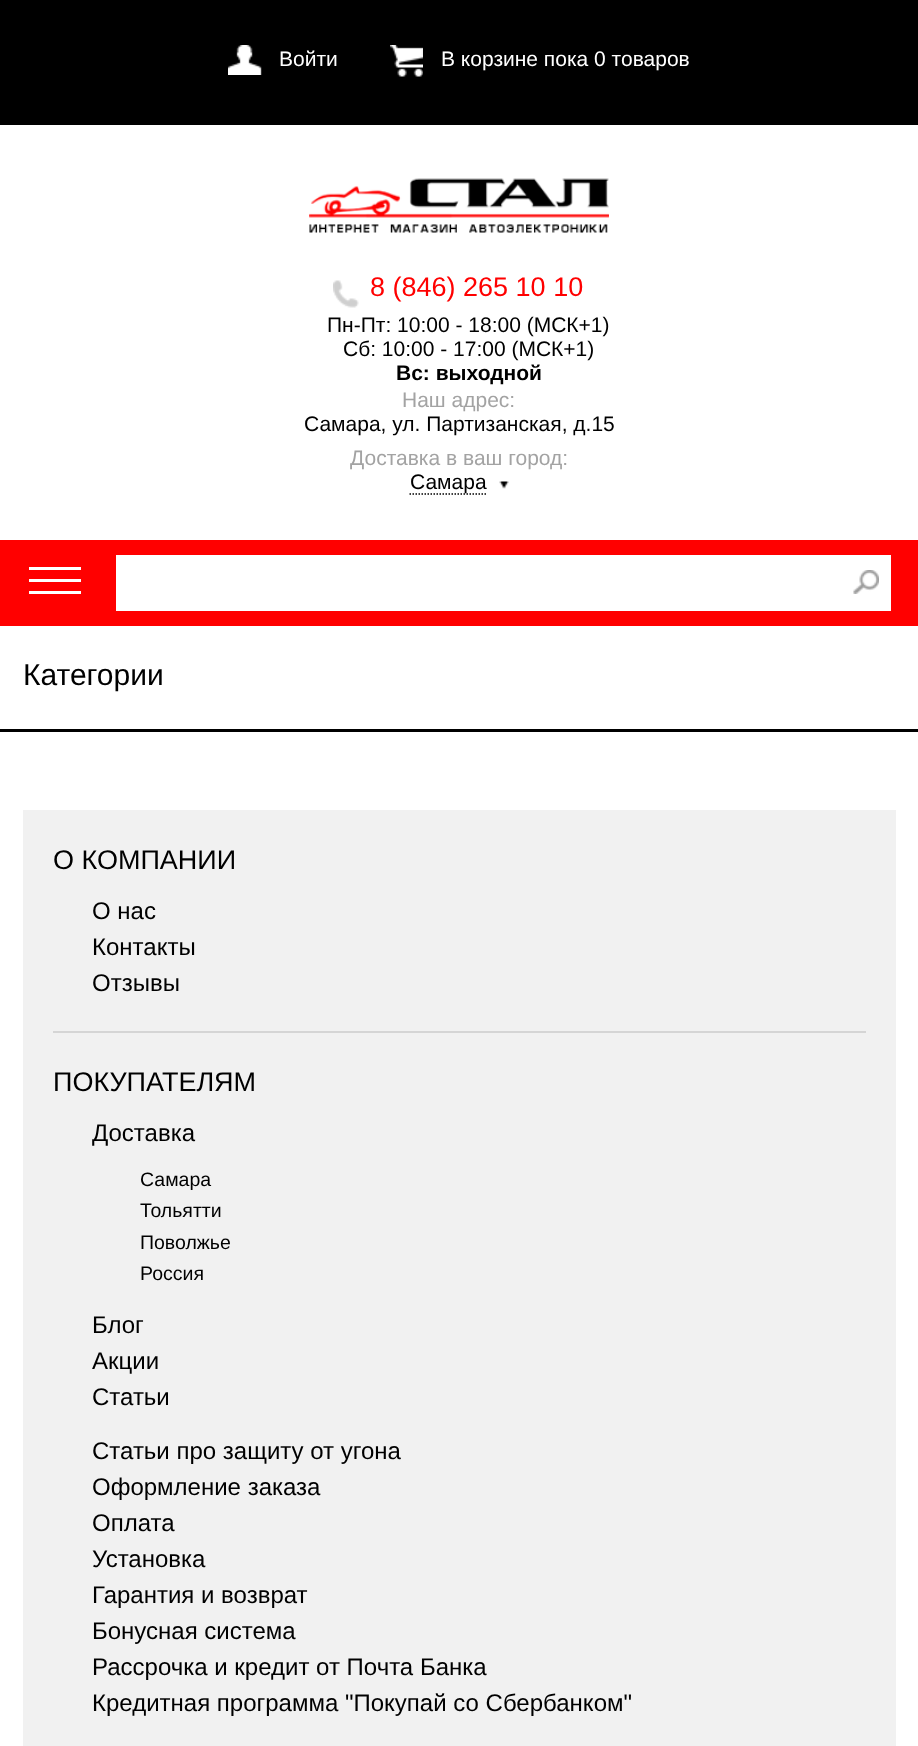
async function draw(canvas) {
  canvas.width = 918
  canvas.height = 1746
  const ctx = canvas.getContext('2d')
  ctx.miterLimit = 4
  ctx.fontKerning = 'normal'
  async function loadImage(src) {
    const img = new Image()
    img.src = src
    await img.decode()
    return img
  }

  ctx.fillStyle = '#fff'
  ctx.fillRect(0, 0, 918, 1746)
  ctx.fillStyle = '#000'
  ctx.fillRect(0, 0, 918, 125)
  ctx.drawImage(await loadImage('image0.png'), 228, 45, 34, 30)
  ctx.font = '21px Liberation Sans'
  ctx.fillStyle = '#fff'
  ctx.fillText('Войти', 279, 66)
  ctx.drawImage(await loadImage('image1.png'), 390, 45, 33, 32)
  ctx.fillText('В корзине пока 0 товаров', 441, 66)
  ctx.drawImage(await loadImage('image2.png'), 309, 178, 300, 55)
  ctx.drawImage(await loadImage('image3.png'), 333, 280, 26, 28)
  ctx.font = '27px Liberation Sans'
  ctx.fillStyle = '#f00'
  ctx.fillText('8 (846) 265 10 10', 370, 296)
  ctx.font = '21px Liberation Sans'
  ctx.fillStyle = '#000'
  ctx.fillText('Пн-Пт: 10:00 - 18:00 (МСК+1)', 327, 332)
  ctx.fillText('Сб: 10:00 - 17:00 (МСК+1)', 343, 356)
  ctx.font = 'bold 21px Liberation Sans'
  ctx.fillText('Вс: выходной', 396, 380)
  ctx.font = '21px Liberation Sans'
  ctx.fillStyle = '#a3a3a3'
  ctx.fillText('Наш адрес:', 402, 407)
  ctx.fillStyle = '#000'
  ctx.fillText('Самара, ул. Партизанская, д.15', 304, 431)
  ctx.fillStyle = '#a3a3a3'
  ctx.fillText('Доставка в ваш город:', 350, 465)
  ctx.beginPath()
  ctx.moveTo(409.5, 494)
  ctx.lineTo(487.5, 494)
  ctx.strokeStyle = '#000'
  ctx.lineWidth = 1.5
  ctx.setLineDash([1.5, 1.5])
  ctx.stroke()
  ctx.fillStyle = '#000'
  ctx.fillText('Самара', 410, 489)
  ctx.drawImage(await loadImage('image4.png'), 499, 481, 10, 8)
  ctx.fillStyle = '#f00'
  ctx.fillRect(0, 540, 918, 86)
  ctx.fillStyle = '#fff'
  ctx.fillRect(29, 567, 52, 3)
  ctx.fillRect(29, 579, 52, 3)
  ctx.fillRect(29, 591, 52, 3)
  ctx.fillRect(116, 555, 775, 56)
  ctx.drawImage(await loadImage('image5.png'), 853, 570, 26, 24)
  ctx.font = '30px Liberation Sans'
  ctx.fillStyle = '#000'
  ctx.fillText('Категории', 23, 685)
  ctx.fillRect(0, 729, 918, 3)
  ctx.fillStyle = '#f1f1f1'
  ctx.fillRect(23, 810, 873, 936)
  ctx.font = '27px Liberation Sans'
  ctx.fillStyle = '#000'
  ctx.fillText('О КОМПАНИИ', 53, 869)
  ctx.font = '24px Liberation Sans'
  ctx.fillText('О нас', 92, 919)
  ctx.fillText('Контакты', 92, 955)
  ctx.fillText('Отзывы', 92, 991)
  ctx.fillStyle = '#d5d5d5'
  ctx.fillRect(53, 1031, 813, 2)
  ctx.font = '27px Liberation Sans'
  ctx.fillStyle = '#000'
  ctx.fillText('ПОКУПАТЕЛЯМ', 53, 1091)
  ctx.font = '24px Liberation Sans'
  ctx.fillText('Доставка', 92, 1141)
  ctx.font = '19.5px Liberation Sans'
  ctx.fillText('Самара', 140, 1186)
  ctx.fillText('Тольятти', 140, 1217)
  ctx.fillText('Поволжье', 140, 1249)
  ctx.fillText('Россия', 140, 1280)
  ctx.font = '24px Liberation Sans'
  ctx.fillText('Блог', 92, 1333)
  ctx.fillText('Акции', 92, 1369)
  ctx.fillText('Статьи', 92, 1405)
  ctx.fillText('Статьи про защиту от угона', 92, 1459)
  ctx.fillText('Оформление заказа', 92, 1495)
  ctx.fillText('Оплата', 92, 1531)
  ctx.fillText('Установка', 92, 1567)
  ctx.fillText('Гарантия и возврат', 92, 1603)
  ctx.fillText('Бонусная система', 92, 1639)
  ctx.fillText('Рассрочка и кредит от Почта Банка', 92, 1675)
  ctx.fillText('Кредитная программа "Покупай со Сбербанком"', 92, 1711)
}

draw(document.querySelector('canvas'))
